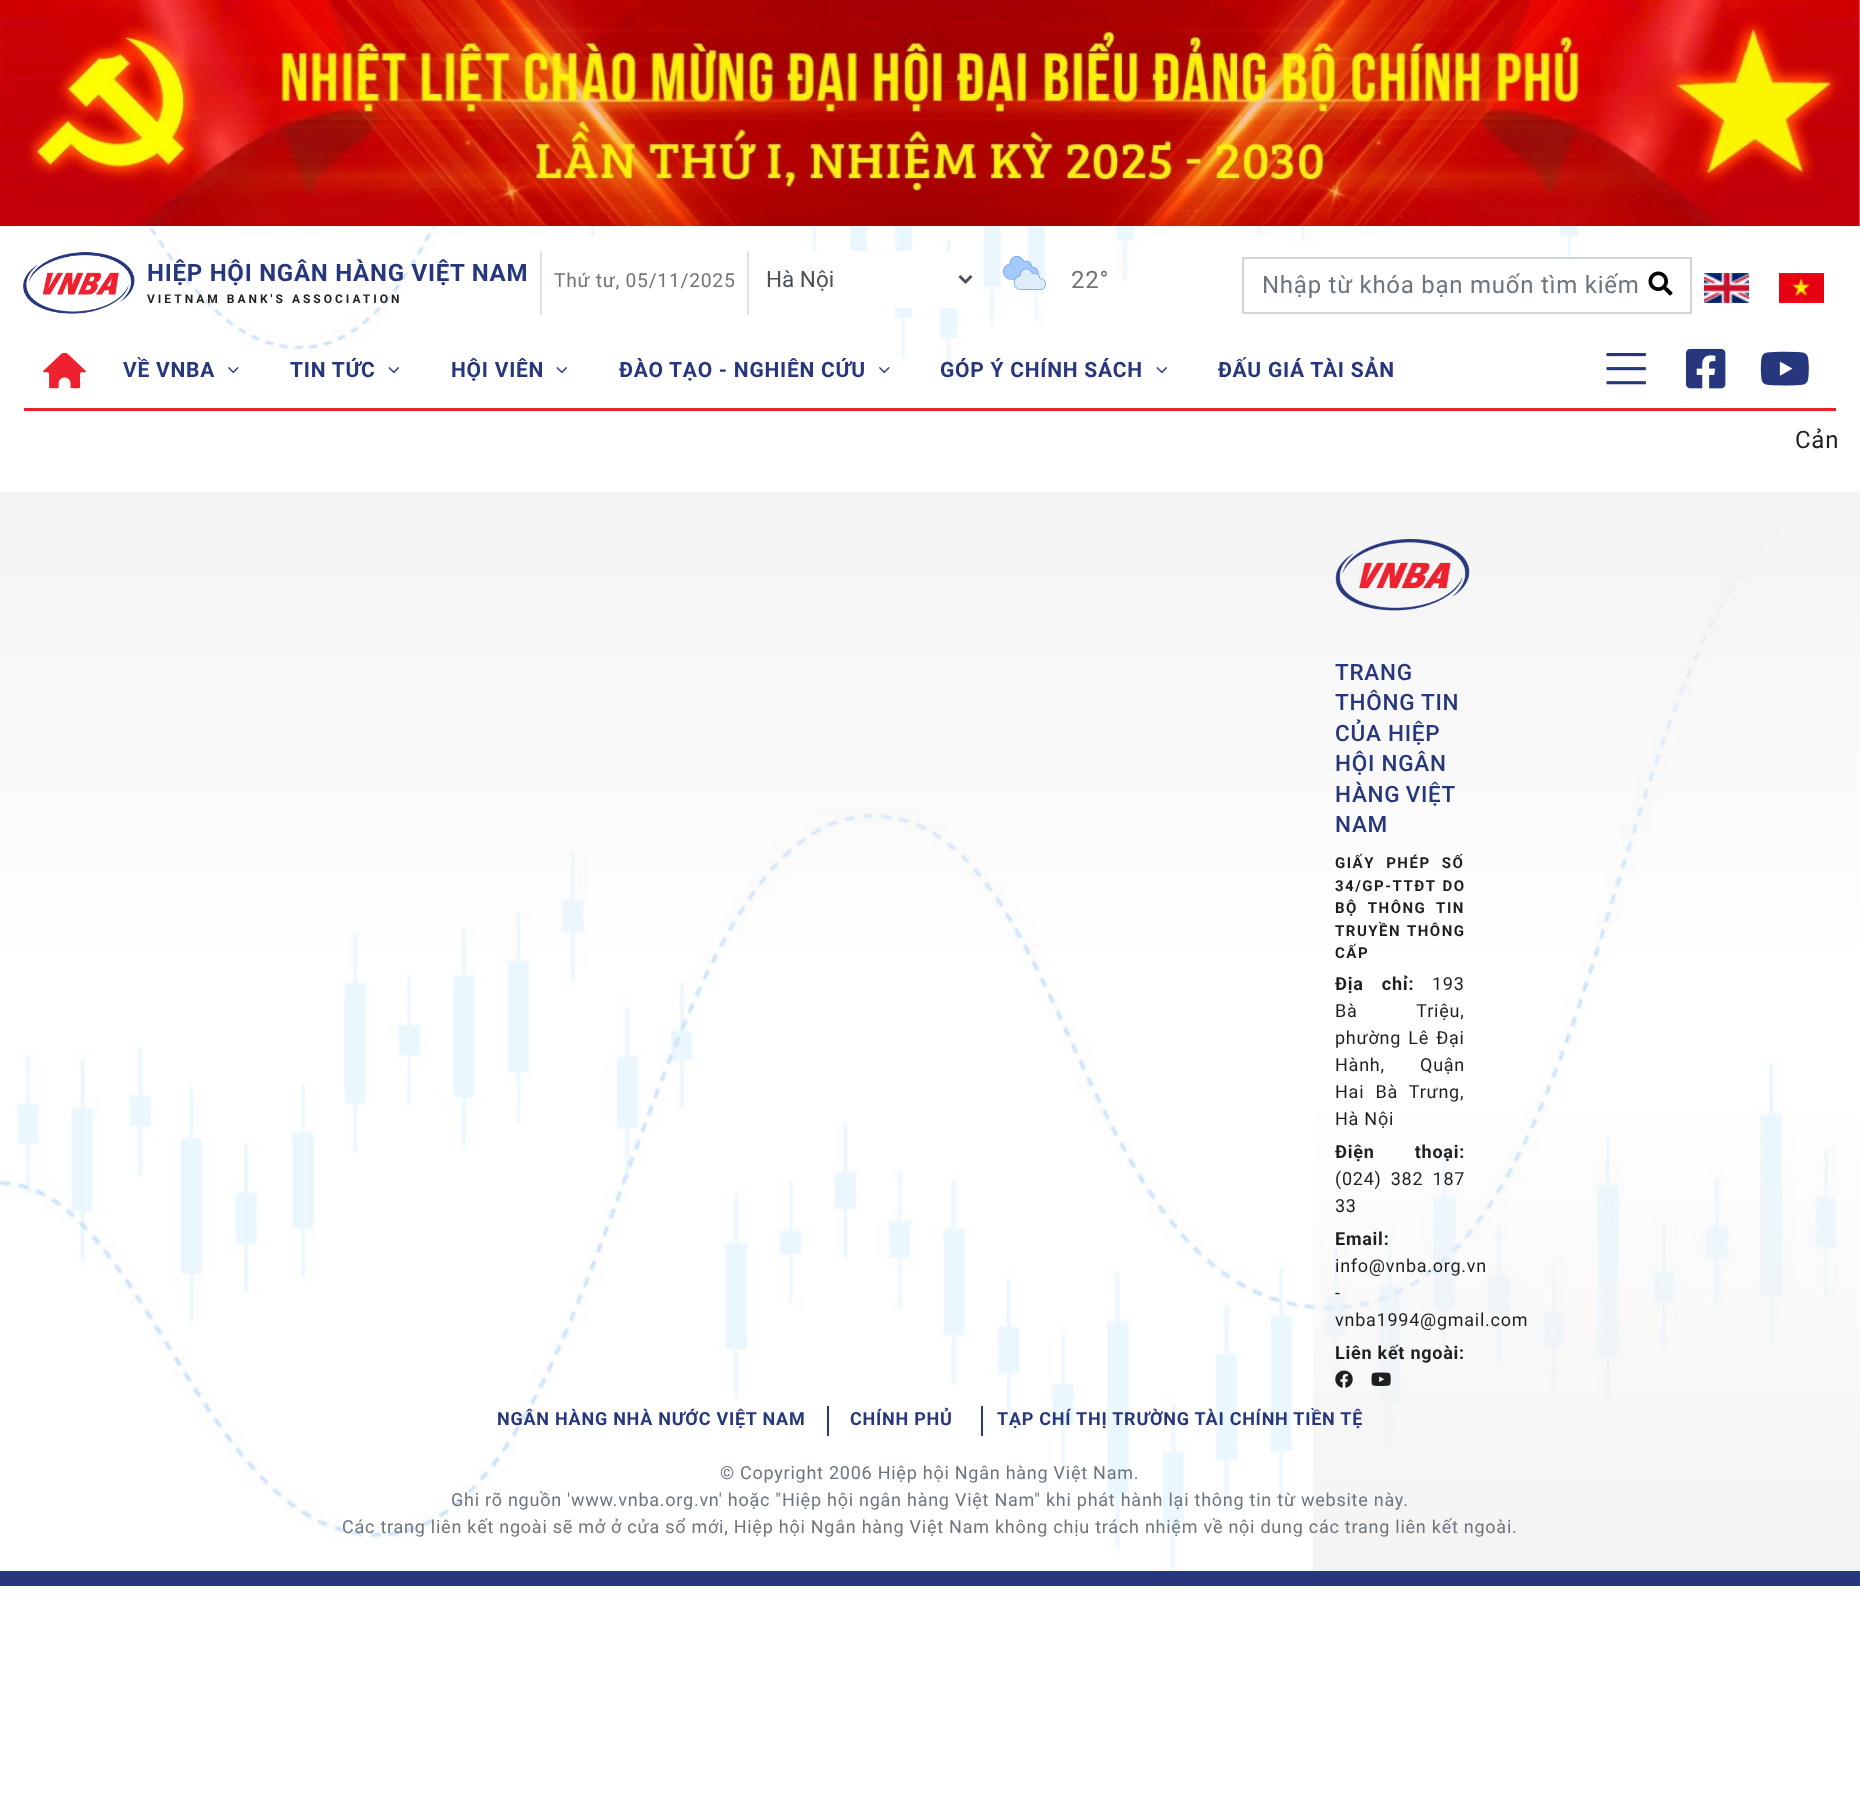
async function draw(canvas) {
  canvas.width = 1860
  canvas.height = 1794
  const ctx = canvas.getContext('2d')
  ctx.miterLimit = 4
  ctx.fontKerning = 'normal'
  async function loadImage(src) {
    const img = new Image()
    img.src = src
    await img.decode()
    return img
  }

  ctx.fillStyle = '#fff'
  ctx.fillRect(0, 0, 1860, 1794)
  ctx.drawImage(await loadImage('image0.png'), 0, 0, 1860, 226)
  ctx.drawImage(await loadImage('image1.png'), 148, 226, 1430, 152)
  ctx.drawImage(await loadImage('image2.png'), 23, 252, 112, 62)
  ctx.letterSpacing = '0.75px'
  ctx.font = 'bold 24px Roboto'
  ctx.fillStyle = '#27377d'
  ctx.fillText('HIỆP HỘI NGÂN HÀNG VIỆT NAM', 147, 281)
  ctx.letterSpacing = '3px'
  ctx.font = 'bold 12px Roboto'
  ctx.fillStyle = '#1f1f1f'
  ctx.fillText('VIETNAM BANK\'S ASSOCIATION', 147, 303)
  ctx.fillStyle = '#dee2e6'
  ctx.fillRect(747, 251, 2, 64)
  ctx.fillRect(540, 251, 2, 64)
  ctx.letterSpacing = '0.75px'
  ctx.font = '19.25px Roboto'
  ctx.fillStyle = '#6c757d'
  ctx.fillText('Thứ tư, 05/11/2025', 554, 287)
  ctx.fillStyle = '#fff'
  ctx.fillRect(811, 251, 153, 57)
  ctx.beginPath()
  ctx.moveTo(959.5, 276)
  ctx.lineTo(965.5, 282)
  ctx.lineTo(971.5, 276)
  ctx.strokeStyle = '#495057'
  ctx.lineWidth = 3
  ctx.stroke()
  ctx.letterSpacing = '0px'
  ctx.font = '22.5px Roboto'
  ctx.fillStyle = '#495057'
  ctx.fillText('Hà Nội', 766, 287)
  ctx.drawImage(await loadImage('image3.png'), 1003, 256, 43, 34)
  ctx.letterSpacing = '0.75px'
  ctx.font = '24px Roboto'
  ctx.fillStyle = '#6c757d'
  ctx.fillText('22°', 1071, 288)
  ctx.fillStyle = '#fff'
  ctx.fillRect(1560, 259, 12, 19)
  ctx.strokeStyle = '#ced4da'
  ctx.lineWidth = 2
  ctx.strokeRect(1243, 258, 448, 55)
  ctx.fillStyle = '#6c757d'
  ctx.fillText('Nhập từ khóa bạn muốn tìm kiếm', 1262, 293)
  ctx.drawImage(await loadImage('image4.png'), 1648, 271, 25, 25)
  ctx.drawImage(await loadImage('image5.png'), 1704, 273, 45, 30)
  ctx.drawImage(await loadImage('image6.png'), 1779, 273, 45, 30)
  ctx.fillStyle = '#ed2130'
  ctx.fillRect(24, 408, 1812, 3)
  ctx.drawImage(await loadImage('image7.png'), 43, 353, 43, 36)
  ctx.font = 'bold 21px Roboto'
  ctx.fillStyle = '#27377d'
  ctx.fillText('VỀ VNBA', 123, 377)
  ctx.drawImage(await loadImage('image8.png'), 228, 367, 11, 7)
  ctx.fillText('TIN TỨC', 290, 377)
  ctx.drawImage(await loadImage('image9.png'), 388, 367, 11, 7)
  ctx.fillText('HỘI VIÊN', 451, 377)
  ctx.drawImage(await loadImage('image9.png'), 556, 367, 11, 7)
  ctx.fillText('ĐÀO TẠO - NGHIÊN CỨU', 619, 377)
  ctx.drawImage(await loadImage('image8.png'), 879, 367, 11, 7)
  ctx.fillText('GÓP Ý CHÍNH SÁCH', 940, 377)
  ctx.drawImage(await loadImage('image9.png'), 1156, 367, 11, 7)
  ctx.fillText('ĐẤU GIÁ TÀI SẢN', 1218, 377)
  ctx.drawImage(await loadImage('image10.png'), 1606, 353, 40, 32)
  ctx.drawImage(await loadImage('image11.png'), 1686, 348, 40, 41)
  ctx.drawImage(await loadImage('image12.png'), 1760, 351, 49, 35)
  ctx.font = '24px Roboto'
  ctx.fillStyle = '#1f1f1f'
  ctx.fillText('Cản', 1795, 448)
  ctx.drawImage(await loadImage('image13.png'), 0, 492, 1860, 1079)
  ctx.fillStyle = '#27377d'
  ctx.fillRect(0, 1571, 1860, 15)
  ctx.drawImage(await loadImage('image14.png'), 1335, 538, 135, 73)
  ctx.font = '500 22.5px Roboto'
  ctx.fillText('TRANG', 1335, 680)
  ctx.fillText('THÔNG TIN', 1335, 710)
  ctx.fillText('CỦA HIỆP', 1335, 741)
  ctx.fillText('HỘI NGÂN', 1335, 771)
  ctx.wordSpacing = '-1px'
  ctx.fillText('HÀNG VIỆT', 1335, 802)
  ctx.wordSpacing = '0px'
  ctx.fillText('NAM', 1335, 832)
  ctx.letterSpacing = '1.5px'
  ctx.wordSpacing = '6px'
  ctx.font = 'bold 15px Roboto'
  ctx.fillStyle = '#1f1f1f'
  ctx.fillText('GIẤY PHÉP SỐ', 1335, 868)
  ctx.wordSpacing = '1px'
  ctx.fillText('34/GP-TTĐT DO', 1335, 891)
  ctx.wordSpacing = '5px'
  ctx.fillText('BỘ THÔNG TIN', 1335, 913)
  ctx.wordSpacing = '1px'
  ctx.fillText('TRUYỀN THÔNG', 1335, 936)
  ctx.wordSpacing = '0px'
  ctx.fillText('CẤP', 1335, 958)
  ctx.letterSpacing = '0.75px'
  ctx.wordSpacing = '13px'
  ctx.font = 'bold 18px Roboto'
  ctx.fillText('Địa chỉ:', 1335, 990)
  ctx.wordSpacing = '0px'
  ctx.font = '18px Roboto'
  ctx.fillText('193', 1432, 990)
  ctx.wordSpacing = '54px'
  ctx.fillText('Bà Triệu,', 1335, 1017)
  ctx.wordSpacing = '2px'
  ctx.fillText('phường Lê Đại', 1335, 1044)
  ctx.wordSpacing = '30px'
  ctx.fillText('Hành, Quận', 1335, 1071)
  ctx.wordSpacing = '6px'
  ctx.fillText('Hai Bà Trưng,', 1335, 1098)
  ctx.wordSpacing = '0px'
  ctx.fillText('Hà Nội', 1335, 1125)
  ctx.wordSpacing = '35px'
  ctx.font = 'bold 18px Roboto'
  ctx.fillText('Điện thoại:', 1335, 1158)
  ctx.wordSpacing = '4px'
  ctx.font = '18px Roboto'
  ctx.fillText('(024) 382 187', 1335, 1185)
  ctx.wordSpacing = '0px'
  ctx.fillText('33', 1335, 1212)
  ctx.font = 'bold 18px Roboto'
  ctx.fillText('Email:', 1335, 1245)
  ctx.font = '18px Roboto'
  ctx.fillText('info@vnba.org.vn', 1335, 1272)
  ctx.fillText('-', 1335, 1299)
  ctx.fillText('vnba1994@gmail.com', 1335, 1326)
  ctx.font = 'bold 18px Roboto'
  ctx.fillText('Liên kết ngoài:', 1335, 1359)
  ctx.drawImage(await loadImage('image15.png'), 1335, 1370, 18, 18)
  ctx.drawImage(await loadImage('image16.png'), 1371, 1372, 20, 14)
  ctx.fillStyle = '#27377d'
  ctx.fillText('NGÂN HÀNG NHÀ NƯỚC VIỆT NAM', 497, 1425)
  ctx.fillStyle = '#26377d'
  ctx.fillRect(827, 1406, 2, 30)
  ctx.fillStyle = '#27377d'
  ctx.fillText('CHÍNH PHỦ', 850, 1425)
  ctx.fillStyle = '#26377d'
  ctx.fillRect(981, 1406, 2, 30)
  ctx.fillStyle = '#27377d'
  ctx.fillText('TẠP CHÍ THỊ TRƯỜNG TÀI CHÍNH TIỀN TỆ', 997, 1425)
  ctx.font = '18px Roboto'
  ctx.fillStyle = '#6c757d'
  ctx.fillText('© Copyright 2006 Hiệp hội Ngân hàng Việt Nam.', 720, 1479)
  ctx.fillText('Ghi rõ nguồn \'www.vnba.org.vn\' hoặc "Hiệp hội ngân hàng Việt Nam" khi phát hành lại thông tin từ website này.', 451, 1506)
  ctx.fillText('Các trang liên kết ngoài sẽ mở ở cửa sổ mới, Hiệp hội Ngân hàng Việt Nam không chịu trách nhiệm về nội dung các trang liên kết ngoài.', 342, 1533)
}

draw(document.querySelector('canvas'))
